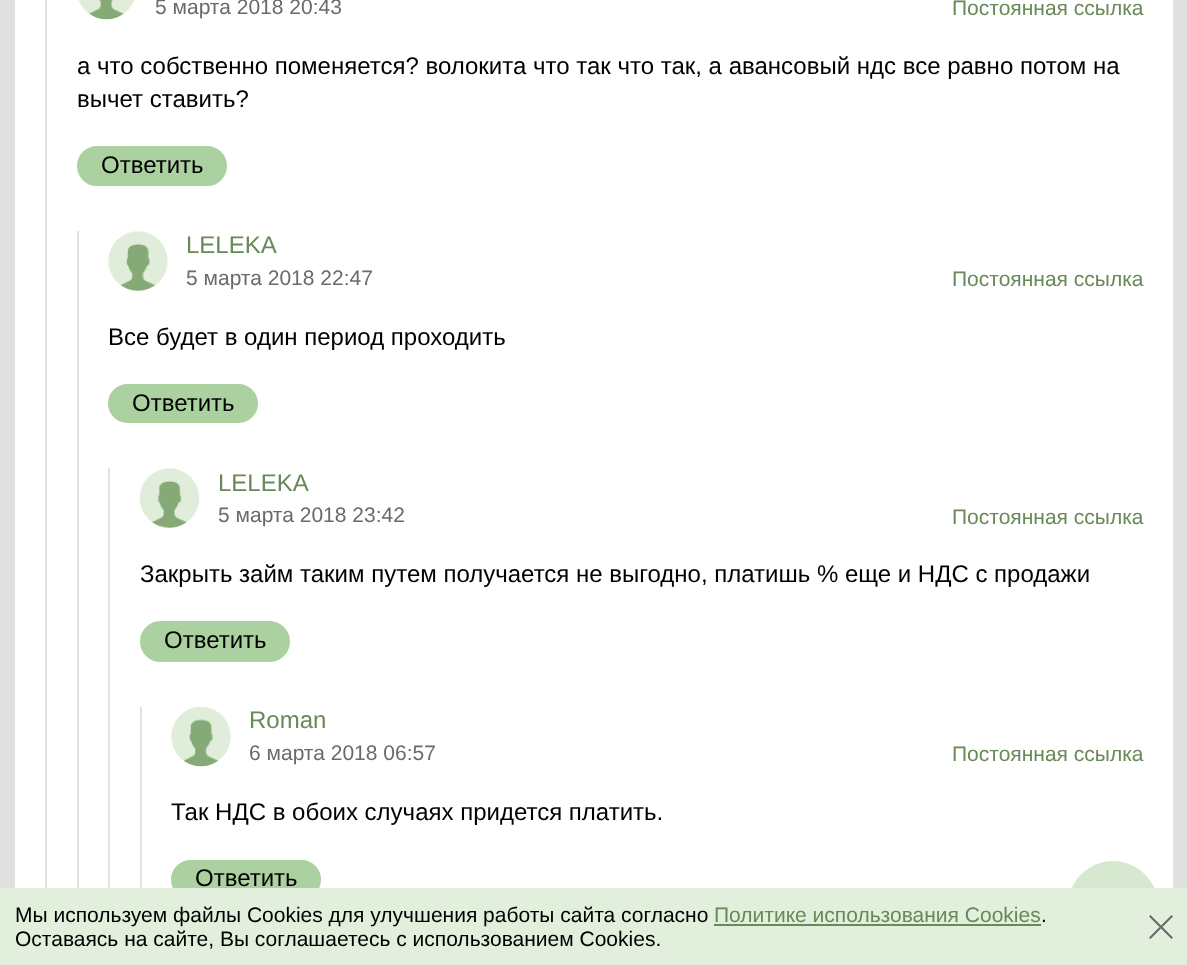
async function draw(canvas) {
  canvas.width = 1187
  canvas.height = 965
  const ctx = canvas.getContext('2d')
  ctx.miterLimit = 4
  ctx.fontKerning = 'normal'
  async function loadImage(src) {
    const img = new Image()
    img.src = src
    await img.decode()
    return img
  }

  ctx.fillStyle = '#e0e0e0'
  ctx.fillRect(0, 0, 1187, 965)
  ctx.fillStyle = '#fff'
  ctx.fillRect(15, 0, 1158, 888)
  ctx.fillStyle = '#e0e0e0'
  ctx.fillRect(45, 0, 2, 888)
  ctx.drawImage(await loadImage('image0.png'), 78, 0, 57, 20)
  ctx.font = '21px Liberation Sans'
  ctx.fillStyle = '#6a6a6a'
  ctx.fillText('5 марта 2018 20:43', 155, 14)
  ctx.fillStyle = '#688958'
  ctx.fillText('Постоянная ссылка', 952, 15)
  ctx.font = '24px Liberation Sans'
  ctx.fillStyle = '#000'
  ctx.fillText('а что собственно поменяется? волокита что так что так, а авансовый ндс все равно потом на', 77, 74)
  ctx.fillText('вычет ставить?', 77, 107)
  ctx.fillStyle = '#acd1a0'
  ctx.beginPath()
  ctx.roundRect(78, 147, 148, 38, 19)
  ctx.fill()
  ctx.strokeStyle = '#acd1a0'
  ctx.lineWidth = 2
  ctx.stroke()
  ctx.fillStyle = '#000'
  ctx.fillText('Ответить', 101, 173)
  ctx.fillStyle = '#e0e0e0'
  ctx.fillRect(77, 231, 2, 657)
  ctx.drawImage(await loadImage('image1.png'), 108, 231, 60, 60)
  ctx.fillStyle = '#688958'
  ctx.fillText('LELEKA', 186, 253)
  ctx.font = '21px Liberation Sans'
  ctx.fillStyle = '#6a6a6a'
  ctx.fillText('5 марта 2018 22:47', 186, 285)
  ctx.fillStyle = '#688958'
  ctx.fillText('Постоянная ссылка', 952, 286)
  ctx.font = '24px Liberation Sans'
  ctx.fillStyle = '#000'
  ctx.fillText('Все будет в один период проходить', 108, 345)
  ctx.fillStyle = '#acd1a0'
  ctx.beginPath()
  ctx.roundRect(109, 385, 148, 37, 18.5)
  ctx.fill()
  ctx.stroke()
  ctx.fillStyle = '#000'
  ctx.fillText('Ответить', 132, 411)
  ctx.fillStyle = '#e0e0e0'
  ctx.fillRect(108, 468, 2, 420)
  ctx.drawImage(await loadImage('image2.png'), 139, 468, 61, 60)
  ctx.fillStyle = '#688958'
  ctx.fillText('LELEKA', 218, 491)
  ctx.font = '21px Liberation Sans'
  ctx.fillStyle = '#6a6a6a'
  ctx.fillText('5 марта 2018 23:42', 218, 522)
  ctx.fillStyle = '#688958'
  ctx.fillText('Постоянная ссылка', 952, 524)
  ctx.font = '24px Liberation Sans'
  ctx.fillStyle = '#000'
  ctx.fillText('Закрыть займ таким путем получается не выгодно, платишь % еще и НДС с продажи', 140, 582)
  ctx.fillStyle = '#acd1a0'
  ctx.beginPath()
  ctx.roundRect(141, 622, 148, 39, 19.5)
  ctx.fill()
  ctx.stroke()
  ctx.fillStyle = '#000'
  ctx.fillText('Ответить', 164, 648)
  ctx.fillStyle = '#e0e0e0'
  ctx.fillRect(140, 707, 2, 181)
  ctx.drawImage(await loadImage('image3.png'), 171, 706, 60, 61)
  ctx.fillStyle = '#688958'
  ctx.fillText('Roman', 249, 728)
  ctx.font = '21px Liberation Sans'
  ctx.fillStyle = '#6a6a6a'
  ctx.fillText('6 марта 2018 06:57', 249, 760)
  ctx.fillStyle = '#688958'
  ctx.fillText('Постоянная ссылка', 952, 761)
  ctx.font = '24px Liberation Sans'
  ctx.fillStyle = '#000'
  ctx.fillText('Так НДС в обоих случаях придется платить.', 171, 820)
  ctx.fillStyle = '#acd1a0'
  ctx.beginPath()
  ctx.roundRect(172, 861, 148, 37, 18.5)
  ctx.fill()
  ctx.stroke()
  ctx.fillStyle = '#000'
  ctx.fillText('Ответить', 195, 886)
  ctx.fillStyle = '#d6e8d0'
  ctx.beginPath()
  ctx.arc(1113, 906, 45, 0, 2 * Math.PI)
  ctx.fill()
  ctx.fillStyle = '#e1efdc'
  ctx.fillRect(0, 888, 1187, 77)
  ctx.font = '21px Liberation Sans'
  ctx.fillStyle = '#000'
  ctx.fillText('Мы используем файлы Cookies для улучшения работы сайта согласно', 15, 922)
  ctx.fillStyle = '#688958'
  ctx.fillText('Политике использования Cookies', 714, 922)
  ctx.fillRect(714, 924, 327, 2)
  ctx.fillStyle = '#000'
  ctx.fillText('.', 1041, 922)
  ctx.fillText('Оставаясь на сайте, Вы соглашаетесь с использованием Cookies.', 15, 946)
  ctx.drawImage(await loadImage('image4.png'), 1149, 915, 24, 24)
}

draw(document.querySelector('canvas'))
